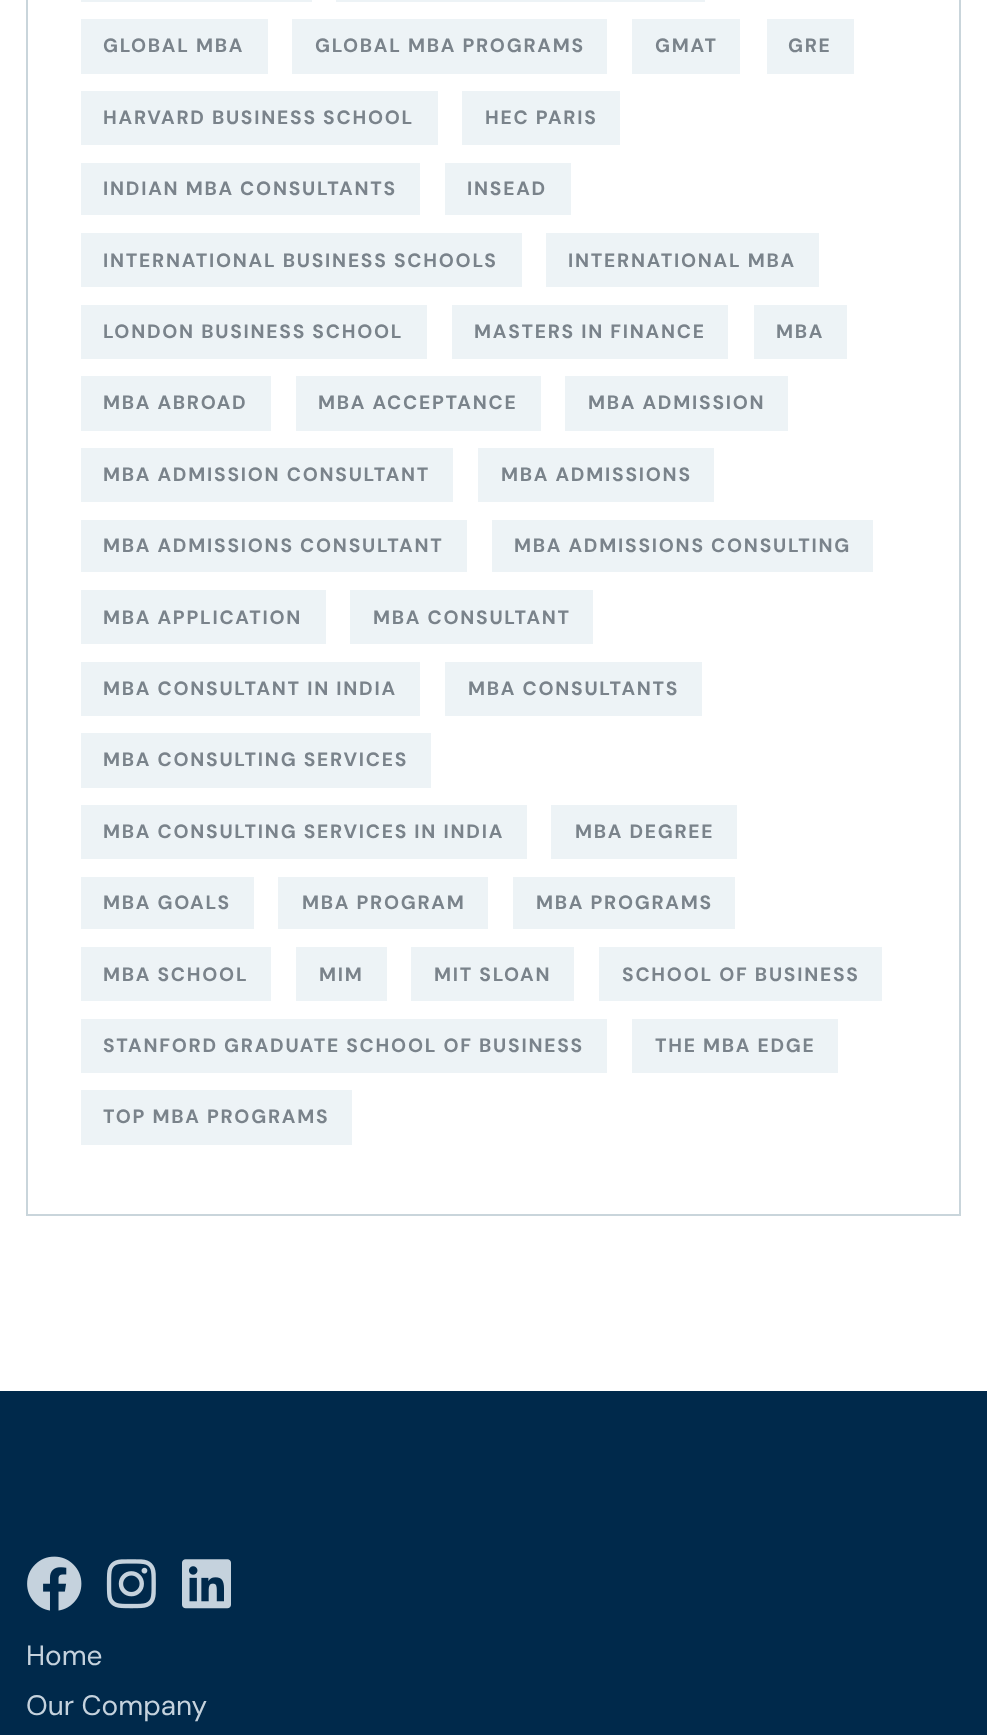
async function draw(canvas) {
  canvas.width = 987
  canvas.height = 1735
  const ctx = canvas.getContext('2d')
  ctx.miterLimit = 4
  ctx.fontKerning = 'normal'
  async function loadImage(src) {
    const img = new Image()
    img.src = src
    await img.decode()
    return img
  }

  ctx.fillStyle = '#fff'
  ctx.fillRect(0, 0, 987, 1735)
  ctx.strokeStyle = '#c9d5db'
  ctx.lineWidth = 2
  ctx.strokeRect(27, -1, 933, 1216)
  ctx.fillStyle = '#edf3f6'
  ctx.fillRect(81, 0, 231, 2)
  ctx.fillRect(336, 0, 369, 2)
  ctx.fillRect(81, 19, 187, 55)
  ctx.letterSpacing = '1.75px'
  ctx.font = 'bold 19.25px DM Sans'
  ctx.fillStyle = '#7a838b'
  ctx.fillText('GLOBAL MBA', 103, 52)
  ctx.fillStyle = '#edf3f6'
  ctx.fillRect(292, 19, 315, 55)
  ctx.fillStyle = '#7a838b'
  ctx.fillText('GLOBAL MBA PROGRAMS', 315, 52)
  ctx.fillStyle = '#edf3f6'
  ctx.fillRect(632, 19, 108, 55)
  ctx.fillStyle = '#7a838b'
  ctx.fillText('GMAT', 655, 52)
  ctx.fillStyle = '#edf3f6'
  ctx.fillRect(767, 19, 87, 55)
  ctx.fillStyle = '#7a838b'
  ctx.fillText('GRE', 788, 52)
  ctx.fillStyle = '#edf3f6'
  ctx.fillRect(81, 91, 357, 54)
  ctx.fillStyle = '#7a838b'
  ctx.fillText('HARVARD BUSINESS SCHOOL', 103, 124)
  ctx.fillStyle = '#edf3f6'
  ctx.fillRect(462, 91, 158, 54)
  ctx.fillStyle = '#7a838b'
  ctx.fillText('HEC PARIS', 485, 124)
  ctx.fillStyle = '#edf3f6'
  ctx.fillRect(81, 163, 339, 52)
  ctx.fillStyle = '#7a838b'
  ctx.fillText('INDIAN MBA CONSULTANTS', 103, 195)
  ctx.fillStyle = '#edf3f6'
  ctx.fillRect(445, 163, 126, 52)
  ctx.fillStyle = '#7a838b'
  ctx.fillText('INSEAD', 467, 195)
  ctx.fillStyle = '#edf3f6'
  ctx.fillRect(81, 233, 441, 54)
  ctx.fillStyle = '#7a838b'
  ctx.fillText('INTERNATIONAL BUSINESS SCHOOLS', 103, 267)
  ctx.fillStyle = '#edf3f6'
  ctx.fillRect(546, 233, 273, 54)
  ctx.fillStyle = '#7a838b'
  ctx.fillText('INTERNATIONAL MBA', 568, 267)
  ctx.fillStyle = '#edf3f6'
  ctx.fillRect(81, 305, 346, 54)
  ctx.fillStyle = '#7a838b'
  ctx.fillText('LONDON BUSINESS SCHOOL', 103, 338)
  ctx.fillStyle = '#edf3f6'
  ctx.fillRect(452, 305, 276, 54)
  ctx.fillStyle = '#7a838b'
  ctx.fillText('MASTERS IN FINANCE', 474, 338)
  ctx.fillStyle = '#edf3f6'
  ctx.fillRect(754, 305, 93, 54)
  ctx.fillStyle = '#7a838b'
  ctx.fillText('MBA', 776, 338)
  ctx.fillStyle = '#edf3f6'
  ctx.fillRect(81, 376, 190, 55)
  ctx.fillStyle = '#7a838b'
  ctx.fillText('MBA ABROAD', 103, 409)
  ctx.fillStyle = '#edf3f6'
  ctx.fillRect(296, 376, 245, 55)
  ctx.fillStyle = '#7a838b'
  ctx.fillText('MBA ACCEPTANCE', 318, 409)
  ctx.fillStyle = '#edf3f6'
  ctx.fillRect(565, 376, 223, 55)
  ctx.fillStyle = '#7a838b'
  ctx.fillText('MBA ADMISSION', 588, 409)
  ctx.fillStyle = '#edf3f6'
  ctx.fillRect(81, 448, 372, 54)
  ctx.fillStyle = '#7a838b'
  ctx.fillText('MBA ADMISSION CONSULTANT', 103, 481)
  ctx.fillStyle = '#edf3f6'
  ctx.fillRect(478, 448, 236, 54)
  ctx.fillStyle = '#7a838b'
  ctx.fillText('MBA ADMISSIONS', 501, 481)
  ctx.fillStyle = '#edf3f6'
  ctx.fillRect(81, 520, 386, 52)
  ctx.fillStyle = '#7a838b'
  ctx.fillText('MBA ADMISSIONS CONSULTANT', 103, 552)
  ctx.fillStyle = '#edf3f6'
  ctx.fillRect(492, 520, 381, 52)
  ctx.fillStyle = '#7a838b'
  ctx.fillText('MBA ADMISSIONS CONSULTING', 514, 552)
  ctx.fillStyle = '#edf3f6'
  ctx.fillRect(81, 590, 245, 54)
  ctx.fillStyle = '#7a838b'
  ctx.fillText('MBA APPLICATION', 103, 624)
  ctx.fillStyle = '#edf3f6'
  ctx.fillRect(350, 590, 243, 54)
  ctx.fillStyle = '#7a838b'
  ctx.fillText('MBA CONSULTANT', 373, 624)
  ctx.fillStyle = '#edf3f6'
  ctx.fillRect(81, 662, 339, 54)
  ctx.fillStyle = '#7a838b'
  ctx.fillText('MBA CONSULTANT IN INDIA', 103, 695)
  ctx.fillStyle = '#edf3f6'
  ctx.fillRect(445, 662, 257, 54)
  ctx.fillStyle = '#7a838b'
  ctx.fillText('MBA CONSULTANTS', 468, 695)
  ctx.fillStyle = '#edf3f6'
  ctx.fillRect(81, 733, 350, 55)
  ctx.fillStyle = '#7a838b'
  ctx.fillText('MBA CONSULTING SERVICES', 103, 766)
  ctx.fillStyle = '#edf3f6'
  ctx.fillRect(81, 805, 446, 54)
  ctx.fillStyle = '#7a838b'
  ctx.fillText('MBA CONSULTING SERVICES IN INDIA', 103, 838)
  ctx.fillStyle = '#edf3f6'
  ctx.fillRect(551, 805, 186, 54)
  ctx.fillStyle = '#7a838b'
  ctx.fillText('MBA DEGREE', 575, 838)
  ctx.fillStyle = '#edf3f6'
  ctx.fillRect(81, 877, 173, 52)
  ctx.fillStyle = '#7a838b'
  ctx.fillText('MBA GOALS', 103, 909)
  ctx.fillStyle = '#edf3f6'
  ctx.fillRect(278, 877, 210, 52)
  ctx.fillStyle = '#7a838b'
  ctx.fillText('MBA PROGRAM', 302, 909)
  ctx.fillStyle = '#edf3f6'
  ctx.fillRect(513, 877, 222, 52)
  ctx.fillStyle = '#7a838b'
  ctx.fillText('MBA PROGRAMS', 536, 909)
  ctx.fillStyle = '#edf3f6'
  ctx.fillRect(81, 947, 190, 54)
  ctx.fillStyle = '#7a838b'
  ctx.fillText('MBA SCHOOL', 103, 981)
  ctx.fillStyle = '#edf3f6'
  ctx.fillRect(296, 947, 91, 54)
  ctx.fillStyle = '#7a838b'
  ctx.fillText('MIM', 319, 981)
  ctx.fillStyle = '#edf3f6'
  ctx.fillRect(411, 947, 163, 54)
  ctx.fillStyle = '#7a838b'
  ctx.fillText('MIT SLOAN', 434, 981)
  ctx.fillStyle = '#edf3f6'
  ctx.fillRect(599, 947, 283, 54)
  ctx.fillStyle = '#7a838b'
  ctx.fillText('SCHOOL OF BUSINESS', 622, 981)
  ctx.fillStyle = '#edf3f6'
  ctx.fillRect(81, 1019, 526, 54)
  ctx.fillStyle = '#7a838b'
  ctx.fillText('STANFORD GRADUATE SCHOOL OF BUSINESS', 103, 1052)
  ctx.fillStyle = '#edf3f6'
  ctx.fillRect(632, 1019, 206, 54)
  ctx.fillStyle = '#7a838b'
  ctx.fillText('THE MBA EDGE', 655, 1052)
  ctx.fillStyle = '#edf3f6'
  ctx.fillRect(81, 1090, 271, 55)
  ctx.fillStyle = '#7a838b'
  ctx.fillText('TOP MBA PROGRAMS', 103, 1123)
  ctx.fillStyle = '#00294b'
  ctx.fillRect(0, 1391, 987, 344)
  ctx.drawImage(await loadImage('image0.png'), 27, 1556, 55, 55)
  ctx.drawImage(await loadImage('image1.png'), 106, 1559, 50, 50)
  ctx.drawImage(await loadImage('image2.png'), 182, 1559, 49, 50)
  ctx.letterSpacing = '0px'
  ctx.font = '28px DM Sans'
  ctx.fillStyle = '#c5d2dd'
  ctx.fillText('Home', 26, 1665)
  ctx.fillText('Our Company', 26, 1715)
}

draw(document.querySelector('canvas'))
